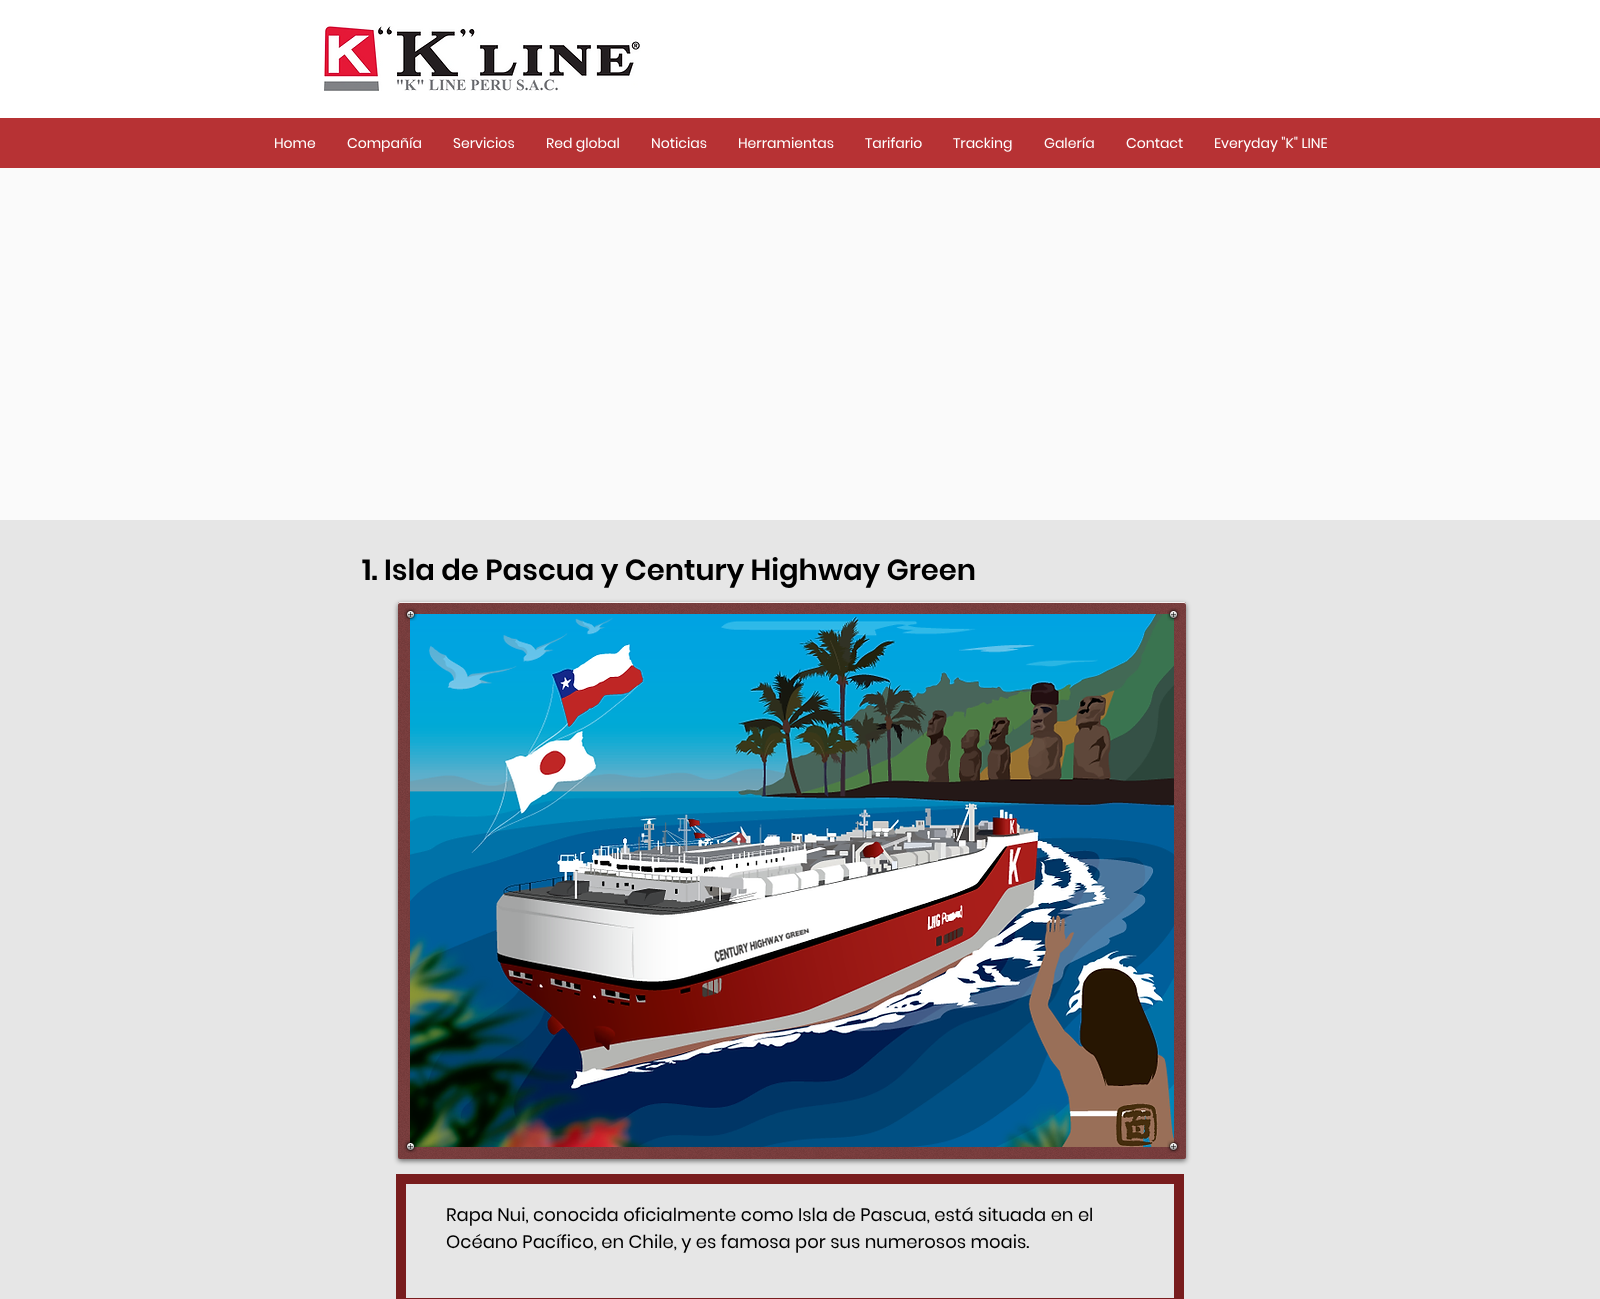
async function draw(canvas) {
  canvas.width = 1600
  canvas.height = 1299
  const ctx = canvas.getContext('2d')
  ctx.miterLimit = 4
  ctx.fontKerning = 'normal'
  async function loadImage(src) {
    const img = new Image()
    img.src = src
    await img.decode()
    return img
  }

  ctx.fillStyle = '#fff'
  ctx.fillRect(0, 0, 1600, 1299)
  ctx.drawImage(await loadImage('image0.png'), 324, 25, 317, 66)
  ctx.fillStyle = '#b73234'
  ctx.fillRect(0, 118, 1600, 50)
  ctx.font = '14px Poppins'
  ctx.fillStyle = '#fff'
  ctx.fillText('Home', 274, 148)
  ctx.fillText('Compañía', 347, 148)
  ctx.fillText('Servicios', 453, 148)
  ctx.fillText('Red global', 546, 148)
  ctx.fillText('Noticias', 651, 148)
  ctx.fillText('Herramientas', 738, 148)
  ctx.fillText('Tarifario', 865, 148)
  ctx.fillText('Tracking', 953, 148)
  ctx.fillText('Galería', 1044, 148)
  ctx.fillText('Contact', 1126, 148)
  ctx.fillText('Everyday "K" LINE', 1214, 148)
  ctx.fillStyle = '#fafafa'
  ctx.fillRect(0, 168, 1600, 352)
  ctx.fillStyle = '#e6e6e6'
  ctx.fillRect(0, 520, 1600, 779)
  ctx.font = '600 29px Poppins'
  ctx.fillStyle = '#000'
  ctx.fillText('1. Isla de Pascua y Century Highway Green', 362, 580)
  ctx.fillStyle = '#00000087'
  ctx.filter = 'blur(2.5px)'
  ctx.beginPath()
  ctx.roundRect(398, 604, 788, 557, 2)
  ctx.fill()
  ctx.filter = 'none'
  ctx.fillStyle = '#7a3d3d'
  ctx.beginPath()
  ctx.roundRect(398, 602, 788, 557, 2)
  ctx.fill()
  ctx.drawImage(await loadImage('image1.png'), 398, 602, 788, 557)
  ctx.fillStyle = '#ffffffeb'
  ctx.beginPath()
  ctx.moveTo(400, 603)
  ctx.bezierCurveTo(399, 603, 398, 604, 398, 605)
  ctx.bezierCurveTo(398, 604, 398, 602, 400, 602)
  ctx.lineTo(1184, 602)
  ctx.bezierCurveTo(1186, 602, 1186, 604, 1186, 605)
  ctx.bezierCurveTo(1186, 604, 1185, 603, 1184, 603)
  ctx.closePath()
  ctx.fill()
  ctx.drawImage(await loadImage('image4.png'), 410, 614, 764, 533)
  ctx.drawImage(await loadImage('image2.png'), 404, 608, 13, 13)
  ctx.drawImage(await loadImage('image3.png'), 1167, 608, 13, 13)
  ctx.drawImage(await loadImage('image5.png'), 404, 1140, 13, 13)
  ctx.drawImage(await loadImage('image6.png'), 1167, 1140, 13, 13)
  ctx.strokeStyle = '#781c1d'
  ctx.lineWidth = 10
  ctx.strokeRect(401, 1179, 778, 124)
  ctx.font = '18px Poppins'
  ctx.fillStyle = '#000'
  ctx.fillText('Rapa Nui, conocida oficialmente como Isla de Pascua, está situada en el', 446, 1221)
  ctx.fillText('Océano Pacífico, en Chile, y es famosa por sus numerosos moais.', 446, 1248)
}

draw(document.querySelector('canvas'))
